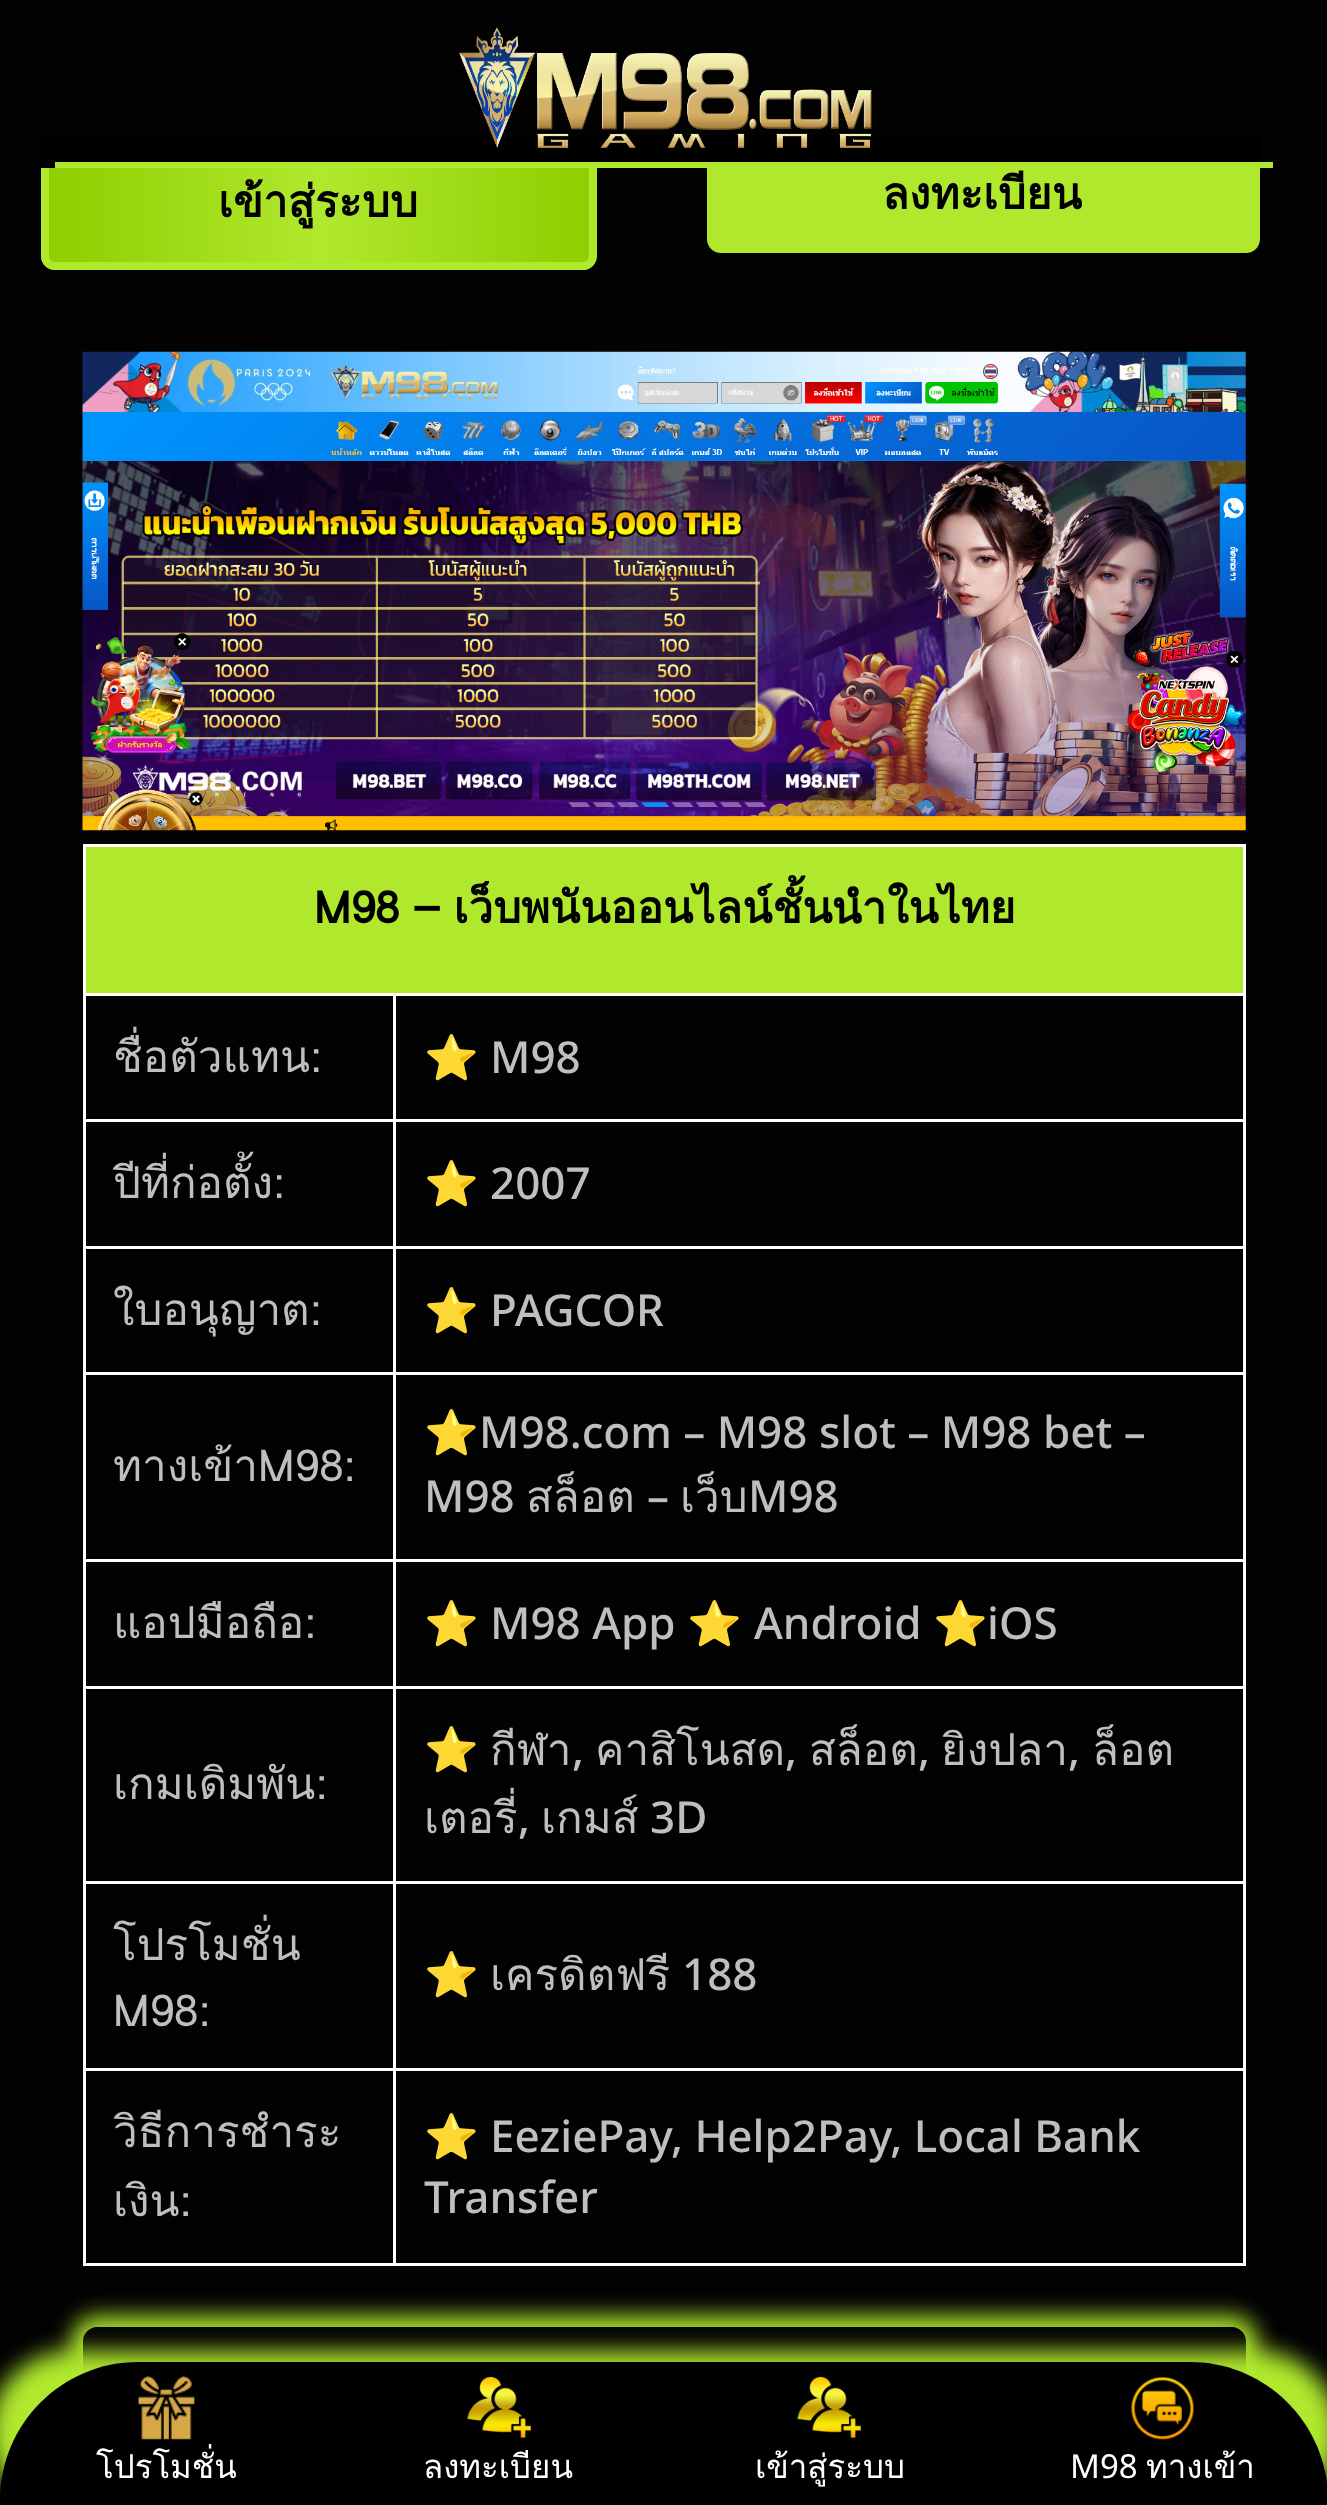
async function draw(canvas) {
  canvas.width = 1327
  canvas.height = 2505
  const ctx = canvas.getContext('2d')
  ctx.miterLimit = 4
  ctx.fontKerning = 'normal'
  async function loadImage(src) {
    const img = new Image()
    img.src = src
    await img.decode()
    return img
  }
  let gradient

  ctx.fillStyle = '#020202'
  ctx.fillRect(0, 0, 1327, 2505)
  ctx.save()
  ctx.beginPath()
  ctx.roundRect(41, 135, 556, 135, 14)
  ctx.clip()
  gradient = ctx.createLinearGradient(-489, 202, 50, 202)
  gradient.addColorStop(0, '#8fce00')
  gradient.addColorStop(0.5, '#b0e82e')
  gradient.addColorStop(1, '#8fce00')
  ctx.fillStyle = gradient
  ctx.fillRect(41, 168, 9, 101)
  gradient = ctx.createLinearGradient(50, 202, 589, 202)
  gradient.addColorStop(0, '#8fce00')
  gradient.addColorStop(0.5, '#b0e82e')
  gradient.addColorStop(1, '#8fce00')
  ctx.fillStyle = gradient
  ctx.fillRect(50, 168, 539, 102)
  ctx.restore()
  ctx.beginPath()
  ctx.roundRect(45, 139, 548, 127, 10)
  ctx.strokeStyle = '#b0e82e'
  ctx.lineWidth = 8
  ctx.stroke()
  ctx.fillStyle = '#b0e82e'
  ctx.beginPath()
  ctx.roundRect(707, 135, 553, 118, 14)
  ctx.fill()
  ctx.fillStyle = '#000'
  ctx.fillRect(41, 135, 1219, 33)
  ctx.fillStyle = '#b0e82e'
  ctx.fillRect(55, 162, 1218, 6)
  ctx.drawImage(await loadImage('image0.png'), 459, 27, 413, 122)
  ctx.font = 'bold 44px Loma'
  ctx.fillStyle = '#000'
  ctx.fillText('เข้าสู่ระบบ', 218, 217)
  ctx.fillText('ลงทะเบียน', 882, 209)
  ctx.drawImage(await loadImage('image1.png'), 82, 351, 1164, 480)
  ctx.fillStyle = '#b0e82e'
  ctx.fillRect(86, 847, 1157, 146)
  ctx.fillStyle = '#fff'
  ctx.fillRect(83, 844, 1163, 3)
  ctx.fillRect(393, 993, 853, 3)
  ctx.fillRect(393, 1119, 853, 3)
  ctx.fillRect(393, 1246, 853, 3)
  ctx.fillRect(393, 1372, 853, 3)
  ctx.fillRect(393, 1559, 853, 3)
  ctx.fillRect(393, 1686, 853, 3)
  ctx.fillRect(393, 1881, 853, 3)
  ctx.fillRect(393, 2068, 853, 3)
  ctx.fillRect(1243, 2068, 3, 198)
  ctx.fillRect(1243, 1881, 3, 190)
  ctx.fillRect(1243, 1686, 3, 198)
  ctx.fillRect(1243, 1559, 3, 130)
  ctx.fillRect(1243, 1372, 3, 190)
  ctx.fillRect(1243, 1246, 3, 129)
  ctx.fillRect(1243, 1119, 3, 130)
  ctx.fillRect(1243, 993, 3, 129)
  ctx.fillRect(1243, 844, 3, 152)
  ctx.fillRect(393, 2263, 853, 3)
  ctx.fillRect(393, 2068, 3, 198)
  ctx.fillRect(83, 2068, 313, 3)
  ctx.fillRect(393, 1881, 3, 190)
  ctx.fillRect(83, 1881, 313, 3)
  ctx.fillRect(393, 1686, 3, 198)
  ctx.fillRect(83, 1686, 313, 3)
  ctx.fillRect(393, 1559, 3, 130)
  ctx.fillRect(83, 1559, 313, 3)
  ctx.fillRect(393, 1372, 3, 190)
  ctx.fillRect(83, 1372, 313, 3)
  ctx.fillRect(393, 1246, 3, 129)
  ctx.fillRect(83, 1246, 313, 3)
  ctx.fillRect(393, 1119, 3, 130)
  ctx.fillRect(83, 1119, 313, 3)
  ctx.fillRect(393, 993, 3, 129)
  ctx.fillRect(83, 993, 313, 3)
  ctx.fillRect(83, 2263, 313, 3)
  ctx.fillRect(83, 2068, 3, 198)
  ctx.fillRect(83, 1881, 3, 190)
  ctx.fillRect(83, 1686, 3, 198)
  ctx.fillRect(83, 1559, 3, 130)
  ctx.fillRect(83, 1372, 3, 190)
  ctx.fillRect(83, 1246, 3, 129)
  ctx.fillRect(83, 1119, 3, 130)
  ctx.fillRect(83, 993, 3, 129)
  ctx.fillRect(83, 844, 3, 152)
  ctx.fillStyle = '#000'
  ctx.fillText('M98 – เว็บพนันออนไลน์ชั้นนำในไทย', 314, 923)
  ctx.font = '44px Loma'
  ctx.fillStyle = '#bfbfbf'
  ctx.fillText('ชื่อตัวแทน:', 113, 1072)
  ctx.font = '44px Noto Color Emoji'
  ctx.fillText('⭐', 424, 1073)
  ctx.font = '500 44px Noto Sans'
  ctx.fillText('M98', 490, 1073)
  ctx.font = '44px Loma'
  ctx.fillText('ปีที่ก่อตั้ง:', 113, 1198)
  ctx.font = '44px Noto Color Emoji'
  ctx.fillText('⭐', 424, 1199)
  ctx.font = '500 44px Noto Sans'
  ctx.fillText('2007', 490, 1199)
  ctx.font = '44px Loma'
  ctx.fillText('ใบอนุญาต:', 113, 1325)
  ctx.font = '44px Noto Color Emoji'
  ctx.fillText('⭐', 424, 1326)
  ctx.font = '500 44px Noto Sans'
  ctx.fillText('PAGCOR', 490, 1326)
  ctx.font = '44px Loma'
  ctx.fillText('ทางเข้าM98:', 113, 1481)
  ctx.font = '44px Noto Color Emoji'
  ctx.fillText('⭐', 424, 1448)
  ctx.font = '500 44px Noto Sans'
  ctx.fillText('M98.com – M98 slot – M98 bet –', 479, 1448)
  ctx.fillText('M98', 424, 1512)
  ctx.font = '44px Loma'
  ctx.fillText('สล็อต', 526, 1512)
  ctx.font = '500 44px Noto Sans'
  ctx.fillText('–', 647, 1512)
  ctx.font = '44px Loma'
  ctx.fillText('เว็บ', 680, 1512)
  ctx.font = '500 44px Noto Sans'
  ctx.fillText('M98', 748, 1512)
  ctx.font = '44px Loma'
  ctx.fillText('แอปมือถือ:', 113, 1638)
  ctx.font = '44px Noto Color Emoji'
  ctx.fillText('⭐', 424, 1639)
  ctx.font = '500 44px Noto Sans'
  ctx.fillText('M98 App', 490, 1639)
  ctx.font = '44px Noto Color Emoji'
  ctx.fillText('⭐', 687, 1639)
  ctx.font = '500 44px Noto Sans'
  ctx.fillText('Android', 754, 1639)
  ctx.font = '44px Noto Color Emoji'
  ctx.fillText('⭐', 933, 1639)
  ctx.font = '500 44px Noto Sans'
  ctx.fillText('iOS', 987, 1639)
  ctx.font = '44px Loma'
  ctx.fillText('เกมเดิมพัน:', 113, 1799)
  ctx.font = '44px Noto Color Emoji'
  ctx.fillText('⭐', 424, 1765)
  ctx.font = '44px Loma'
  ctx.fillText('กีฬา', 490, 1765)
  ctx.font = '500 44px Noto Sans'
  ctx.fillText(',', 572, 1765)
  ctx.font = '44px Loma'
  ctx.fillText('คาสิโนสด', 595, 1765)
  ctx.font = '500 44px Noto Sans'
  ctx.fillText(',', 785, 1765)
  ctx.font = '44px Loma'
  ctx.fillText('สล็อต', 809, 1765)
  ctx.font = '500 44px Noto Sans'
  ctx.fillText(',', 918, 1765)
  ctx.font = '44px Loma'
  ctx.fillText('ยิงปลา', 941, 1765)
  ctx.font = '500 44px Noto Sans'
  ctx.fillText(',', 1068, 1765)
  ctx.font = '44px Loma'
  ctx.fillText('ล็อต', 1092, 1765)
  ctx.fillText('เตอรี่', 424, 1833)
  ctx.font = '500 44px Noto Sans'
  ctx.fillText(',', 518, 1833)
  ctx.font = '44px Loma'
  ctx.fillText('เกมส์', 541, 1833)
  ctx.font = '500 44px Noto Sans'
  ctx.fillText('3D', 650, 1833)
  ctx.font = '44px Loma'
  ctx.fillText('โปรโมชั่น', 113, 1960)
  ctx.fillText('M98:', 113, 2026)
  ctx.font = '44px Noto Color Emoji'
  ctx.fillText('⭐', 424, 1990)
  ctx.font = '44px Loma'
  ctx.fillText('เครดิตฟรี', 490, 1990)
  ctx.font = '500 44px Noto Sans'
  ctx.fillText('188', 682, 1990)
  ctx.font = '44px Loma'
  ctx.fillText('วิธีการชำระ', 113, 2147)
  ctx.fillText('เงิน:', 113, 2216)
  ctx.font = '44px Noto Color Emoji'
  ctx.fillText('⭐', 424, 2152)
  ctx.font = '500 44px Noto Sans'
  ctx.fillText('EeziePay, Help2Pay, Local Bank', 490, 2152)
  ctx.fillText('Transfer', 424, 2213)
  ctx.save()
  ctx.beginPath()
  ctx.moveTo(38, 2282)
  ctx.lineTo(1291, 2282)
  ctx.lineTo(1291, 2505)
  ctx.lineTo(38, 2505)
  ctx.closePath()
  ctx.moveTo(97, 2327)
  ctx.lineTo(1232, 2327)
  ctx.bezierCurveTo(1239.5, 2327, 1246, 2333.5, 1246, 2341)
  ctx.lineTo(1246, 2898)
  ctx.bezierCurveTo(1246, 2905.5, 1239.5, 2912, 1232, 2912)
  ctx.lineTo(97, 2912)
  ctx.bezierCurveTo(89.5, 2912, 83, 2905.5, 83, 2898)
  ctx.lineTo(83, 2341)
  ctx.bezierCurveTo(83, 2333.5, 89.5, 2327, 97, 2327)
  ctx.closePath()
  ctx.clip('evenodd')
  ctx.fillStyle = '#b0e82e'
  ctx.filter = 'blur(11px)'
  ctx.beginPath()
  ctx.roundRect(72, 2316, 1185, 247, 25)
  ctx.fill()
  ctx.filter = 'none'
  ctx.restore()
  ctx.fillStyle = '#b0e82e'
  ctx.filter = 'blur(11px)'
  ctx.beginPath()
  ctx.roundRect(-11, 2351, 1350, 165, 149)
  ctx.fill()
  ctx.filter = 'none'
  ctx.fillStyle = '#000'
  ctx.beginPath()
  ctx.moveTo(138, 2362)
  ctx.lineTo(1190, 2362)
  ctx.bezierCurveTo(1266, 2362, 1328, 2424, 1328, 2500)
  ctx.lineTo(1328, 2505)
  ctx.lineTo(0, 2505)
  ctx.lineTo(0, 2500)
  ctx.bezierCurveTo(0, 2424, 62, 2362, 138, 2362)
  ctx.closePath()
  ctx.fill()
  ctx.drawImage(await loadImage('image2.png'), 138, 2376, 57, 64)
  ctx.font = '33px Loma'
  ctx.fillStyle = '#fff'
  ctx.fillText('โปรโมชั่น', 96, 2478)
  ctx.drawImage(await loadImage('image3.png'), 467, 2376, 64, 62)
  ctx.fillText('ลงทะเบียน', 423, 2478)
  ctx.drawImage(await loadImage('image3.png'), 797, 2376, 64, 62)
  ctx.fillText('เข้าสู่ระบบ', 755, 2478)
  ctx.drawImage(await loadImage('image4.png'), 1131, 2377, 63, 63)
  ctx.font = '33px Noto Sans'
  ctx.fillText('M98', 1070, 2478)
  ctx.font = '33px Loma'
  ctx.fillText('ทางเข้า', 1146, 2478)
}

draw(document.querySelector('canvas'))
